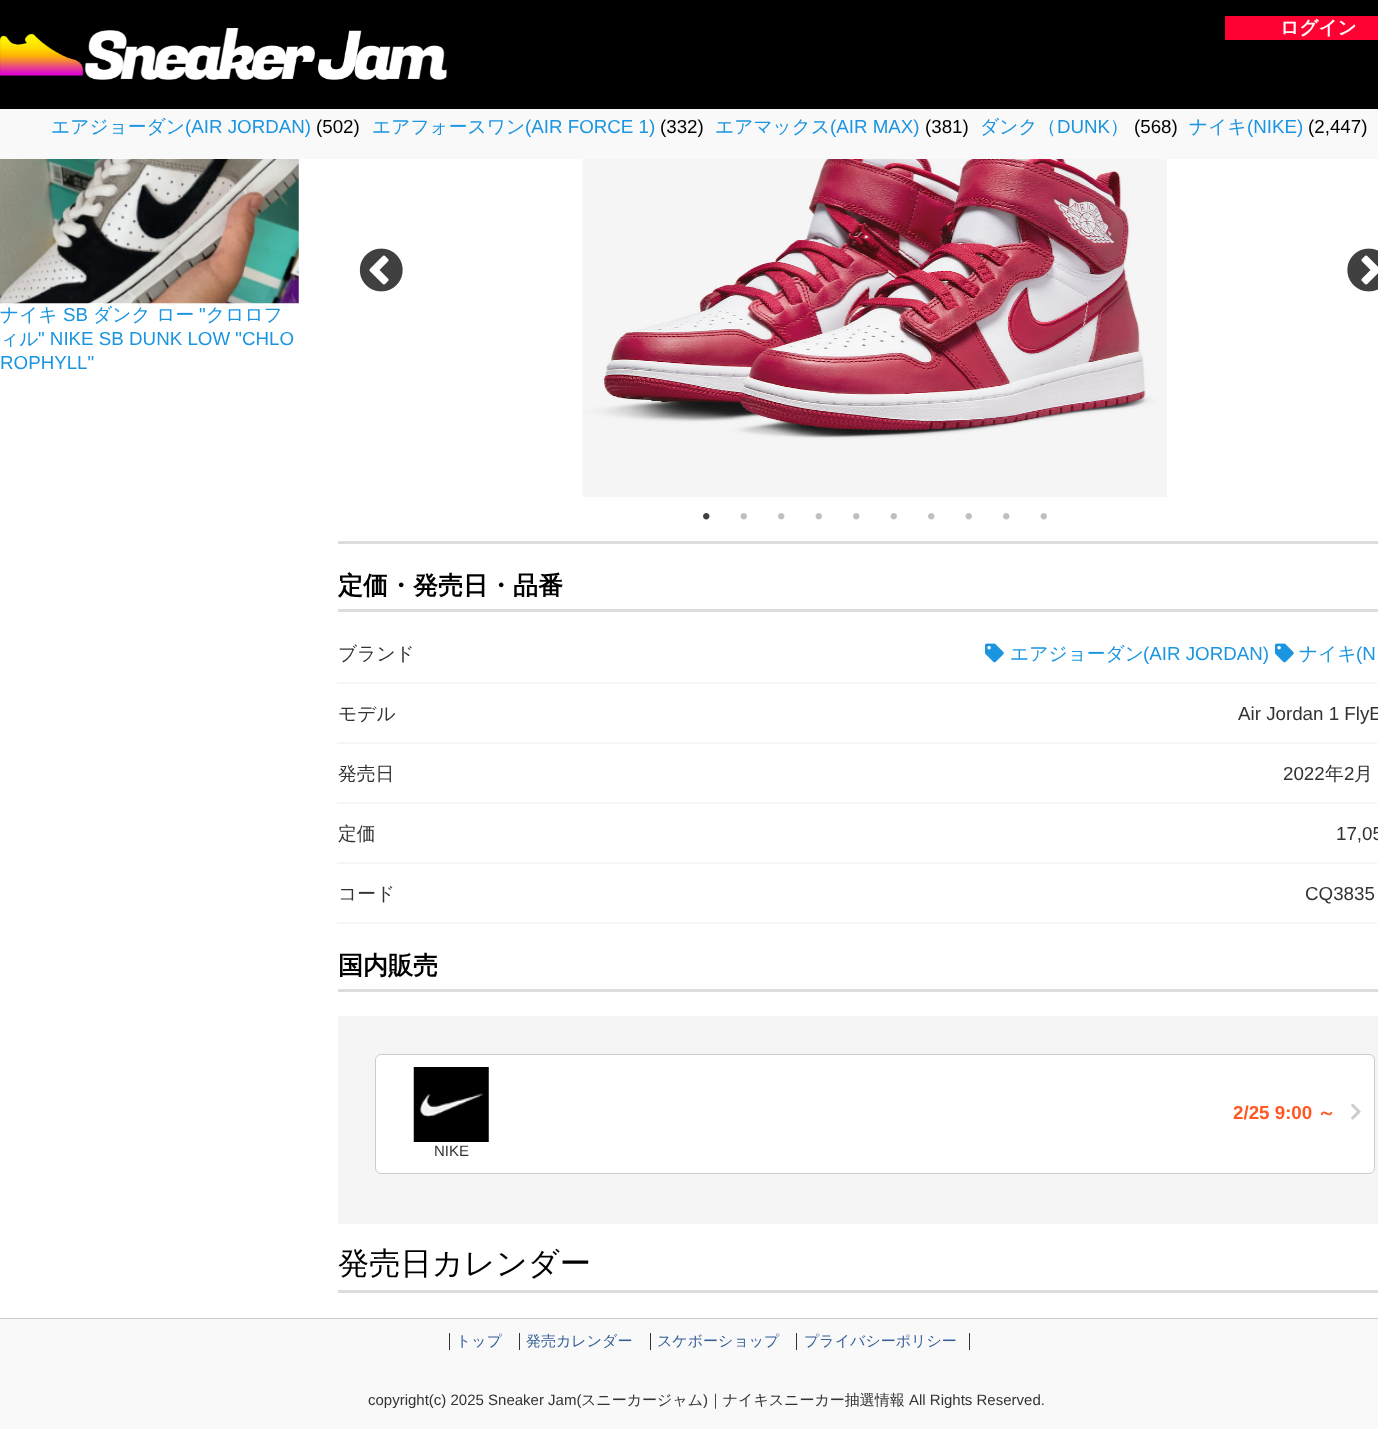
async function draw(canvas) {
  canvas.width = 1378
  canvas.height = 1429
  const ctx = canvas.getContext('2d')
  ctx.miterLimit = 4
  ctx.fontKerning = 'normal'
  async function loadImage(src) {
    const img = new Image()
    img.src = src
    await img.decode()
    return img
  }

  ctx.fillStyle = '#fff'
  ctx.fillRect(0, 0, 1378, 1429)
  ctx.fillStyle = '#000'
  ctx.fillRect(0, 0, 1378, 109)
  ctx.drawImage(await loadImage('image0.png'), 0, 28, 448, 52)
  ctx.fillStyle = '#f03'
  ctx.fillRect(1225, 16, 153, 24)
  ctx.font = 'bold 18.75px WenQuanYi Zen Hei'
  ctx.fillStyle = '#fff'
  ctx.fillText('ログイン', 1280, 34)
  ctx.fillStyle = '#f9f9f9'
  ctx.fillRect(0, 109, 1378, 50)
  ctx.font = '500 18.75px WenQuanYi Zen Hei'
  ctx.fillStyle = '#1b95e0'
  ctx.fillText('エアジョーダン', 51, 133)
  ctx.font = '18.75px Liberation Sans'
  ctx.fillText('(AIR JORDAN)', 185, 133)
  ctx.fillStyle = '#000'
  ctx.fillText('(502)', 316, 133)
  ctx.font = '500 18.75px WenQuanYi Zen Hei'
  ctx.fillStyle = '#1b95e0'
  ctx.fillText('エアフォースワン', 372, 133)
  ctx.font = '18.75px Liberation Sans'
  ctx.fillText('(AIR FORCE 1)', 525, 133)
  ctx.fillStyle = '#000'
  ctx.fillText('(332)', 660, 133)
  ctx.font = '500 18.75px WenQuanYi Zen Hei'
  ctx.fillStyle = '#1b95e0'
  ctx.fillText('エアマックス', 715, 133)
  ctx.font = '18.75px Liberation Sans'
  ctx.fillText('(AIR MAX)', 830, 133)
  ctx.fillStyle = '#000'
  ctx.fillText('(381)', 925, 133)
  ctx.font = '500 18.75px WenQuanYi Zen Hei'
  ctx.fillStyle = '#1b95e0'
  ctx.fillText('ダンク（', 980, 133)
  ctx.font = '18.75px Liberation Sans'
  ctx.fillText('DUNK', 1057, 133)
  ctx.font = '500 18.75px WenQuanYi Zen Hei'
  ctx.fillText('）', 1110, 133)
  ctx.font = '18.75px Liberation Sans'
  ctx.fillStyle = '#000'
  ctx.fillText('(568)', 1134, 133)
  ctx.font = '500 18.75px WenQuanYi Zen Hei'
  ctx.fillStyle = '#1b95e0'
  ctx.fillText('ナイキ', 1189, 133)
  ctx.font = '18.75px Liberation Sans'
  ctx.fillText('(NIKE)', 1247, 133)
  ctx.fillStyle = '#000'
  ctx.fillText('(2,447)', 1308, 133)
  ctx.drawImage(await loadImage('image1.png'), 0, 159, 299, 145)
  ctx.font = '500 18.75px WenQuanYi Zen Hei'
  ctx.fillStyle = '#1b95e0'
  ctx.fillText('ナイキ', 0, 321)
  ctx.font = '18.75px Liberation Sans'
  ctx.fillText('SB', 63, 321)
  ctx.font = '500 18.75px WenQuanYi Zen Hei'
  ctx.fillText('ダンク ロー', 93, 321)
  ctx.font = '18.75px Liberation Sans'
  ctx.fillText('"', 199, 321)
  ctx.font = '500 18.75px WenQuanYi Zen Hei'
  ctx.fillText('クロロフ', 206, 321)
  ctx.fillText('ィル', 0, 345)
  ctx.font = '18.75px Liberation Sans'
  ctx.fillText('" NIKE SB DUNK LOW "CHLO', 38, 345)
  ctx.fillText('ROPHYLL"', 0, 369)
  ctx.drawImage(await loadImage('image2.png'), 359, 248, 44, 44)
  ctx.drawImage(await loadImage('image3.png'), 582, 159, 585, 338)
  ctx.drawImage(await loadImage('image4.png'), 1347, 248, 31, 44)
  ctx.drawImage(await loadImage('image5.png'), 703, 513, 7, 7)
  ctx.drawImage(await loadImage('image6.png'), 740, 513, 7, 7)
  ctx.drawImage(await loadImage('image7.png'), 778, 513, 7, 7)
  ctx.drawImage(await loadImage('image6.png'), 815, 513, 7, 7)
  ctx.drawImage(await loadImage('image7.png'), 853, 513, 7, 7)
  ctx.drawImage(await loadImage('image6.png'), 890, 513, 7, 7)
  ctx.drawImage(await loadImage('image7.png'), 928, 513, 7, 7)
  ctx.drawImage(await loadImage('image6.png'), 965, 513, 7, 7)
  ctx.drawImage(await loadImage('image7.png'), 1003, 513, 7, 7)
  ctx.drawImage(await loadImage('image6.png'), 1040, 513, 7, 7)
  ctx.fillStyle = '#ddd'
  ctx.fillRect(338, 541, 1040, 3)
  ctx.fillRect(338, 609, 1040, 3)
  ctx.font = 'bold 25px WenQuanYi Zen Hei'
  ctx.fillStyle = '#000'
  ctx.fillText('定価・発売日・品番', 338, 594)
  ctx.beginPath()
  ctx.moveTo(337.5, 683)
  ctx.lineTo(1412.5, 683)
  ctx.strokeStyle = '#ddd'
  ctx.lineWidth = 1.2
  ctx.setLineDash([1.25, 1.25])
  ctx.stroke()
  ctx.font = '500 18.75px WenQuanYi Zen Hei'
  ctx.fillStyle = '#333'
  ctx.fillText('ブランド', 338, 660)
  ctx.drawImage(await loadImage('image8.png'), 985, 643, 19, 20)
  ctx.fillStyle = '#1b95e0'
  ctx.fillText('エアジョーダン', 1010, 660)
  ctx.font = '18.75px Liberation Sans'
  ctx.fillText('(AIR JORDAN)', 1143, 660)
  ctx.drawImage(await loadImage('image8.png'), 1275, 643, 19, 20)
  ctx.font = '500 18.75px WenQuanYi Zen Hei'
  ctx.fillText('ナイキ', 1299, 660)
  ctx.font = '18.75px Liberation Sans'
  ctx.fillText('(N', 1356, 660)
  ctx.beginPath()
  ctx.moveTo(337.5, 743)
  ctx.lineTo(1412.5, 743)
  ctx.stroke()
  ctx.font = '500 18.75px WenQuanYi Zen Hei'
  ctx.fillStyle = '#333'
  ctx.fillText('モデル', 338, 720)
  ctx.font = '18.75px Liberation Sans'
  ctx.fillText('Air Jordan 1 FlyE', 1238, 720)
  ctx.beginPath()
  ctx.moveTo(337.5, 803)
  ctx.lineTo(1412.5, 803)
  ctx.stroke()
  ctx.font = '500 18.75px WenQuanYi Zen Hei'
  ctx.fillText('発売日', 338, 780)
  ctx.font = '18.75px Liberation Sans'
  ctx.fillText('2022', 1283, 780)
  ctx.font = '500 18.75px WenQuanYi Zen Hei'
  ctx.fillText('年', 1325, 780)
  ctx.font = '18.75px Liberation Sans'
  ctx.fillText('2', 1344, 780)
  ctx.font = '500 18.75px WenQuanYi Zen Hei'
  ctx.fillText('月', 1354, 780)
  ctx.beginPath()
  ctx.moveTo(337.5, 863)
  ctx.lineTo(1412.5, 863)
  ctx.stroke()
  ctx.fillText('定価', 338, 840)
  ctx.font = '18.75px Liberation Sans'
  ctx.fillText('17,05', 1336, 840)
  ctx.beginPath()
  ctx.moveTo(337.5, 923)
  ctx.lineTo(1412.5, 923)
  ctx.stroke()
  ctx.font = '500 18.75px WenQuanYi Zen Hei'
  ctx.fillText('コード', 338, 900)
  ctx.font = '18.75px Liberation Sans'
  ctx.fillText('CQ3835', 1305, 900)
  ctx.fillStyle = '#ddd'
  ctx.fillRect(338, 989, 1040, 3)
  ctx.font = 'bold 25px WenQuanYi Zen Hei'
  ctx.fillStyle = '#000'
  ctx.fillText('国内販売', 338, 974)
  ctx.fillStyle = '#f5f5f5'
  ctx.fillRect(338, 1016, 1040, 208)
  ctx.fillStyle = '#fff'
  ctx.beginPath()
  ctx.roundRect(375.5, 1054.5, 999, 119, 5.5)
  ctx.fill()
  ctx.strokeStyle = '#ccc'
  ctx.lineWidth = 1
  ctx.setLineDash([])
  ctx.stroke()
  ctx.font = 'bold 18.75px Liberation Sans'
  ctx.fillStyle = '#ff5825'
  ctx.fillText('2/25 9:00', 1233, 1119)
  ctx.font = 'bold 18.75px WenQuanYi Zen Hei'
  ctx.fillText('～', 1317, 1119)
  ctx.drawImage(await loadImage('image9.png'), 1351, 1103, 10, 17)
  ctx.drawImage(await loadImage('image10.png'), 413, 1067, 76, 75)
  ctx.font = '15px Liberation Sans'
  ctx.fillStyle = '#333'
  ctx.fillText('NIKE', 434, 1156)
  ctx.fillStyle = '#ddd'
  ctx.fillRect(338, 1290, 1040, 3)
  ctx.font = '500 31.25px WenQuanYi Zen Hei'
  ctx.fillStyle = '#000'
  ctx.fillText('発売日カレンダー', 338, 1274)
  ctx.fillStyle = '#f9f9f9'
  ctx.fillRect(0, 1319, 1378, 110)
  ctx.fillStyle = '#ccc'
  ctx.fillRect(0, 1318, 1378, 1)
  ctx.font = '500 15px WenQuanYi Zen Hei'
  ctx.fillStyle = '#355f96'
  ctx.fillText('トップ', 456, 1346)
  ctx.fillStyle = '#333'
  ctx.fillRect(449, 1333, 1, 17)
  ctx.fillStyle = '#355f96'
  ctx.fillText('発売カレンダー', 526, 1346)
  ctx.fillStyle = '#333'
  ctx.fillRect(519, 1333, 1, 17)
  ctx.fillStyle = '#355f96'
  ctx.fillText('スケボーショップ', 657, 1346)
  ctx.fillStyle = '#333'
  ctx.fillRect(650, 1333, 1, 17)
  ctx.fillStyle = '#355f96'
  ctx.fillText('プライバシーポリシー', 804, 1346)
  ctx.fillStyle = '#333'
  ctx.fillRect(796, 1333, 1, 17)
  ctx.fillRect(969, 1333, 1, 17)
  ctx.font = '15px Liberation Sans'
  ctx.fillText('copyright(c) 2025 Sneaker Jam(', 368, 1405)
  ctx.font = '500 15px WenQuanYi Zen Hei'
  ctx.fillText('スニーカージャム', 581, 1405)
  ctx.font = '15px Liberation Sans'
  ctx.fillText(')', 703, 1405)
  ctx.font = '500 15px WenQuanYi Zen Hei'
  ctx.fillText('｜ナイキスニーカー抽選情報', 708, 1405)
  ctx.font = '15px Liberation Sans'
  ctx.fillText('All Rights Reserved.', 909, 1405)
}

draw(document.querySelector('canvas'))
